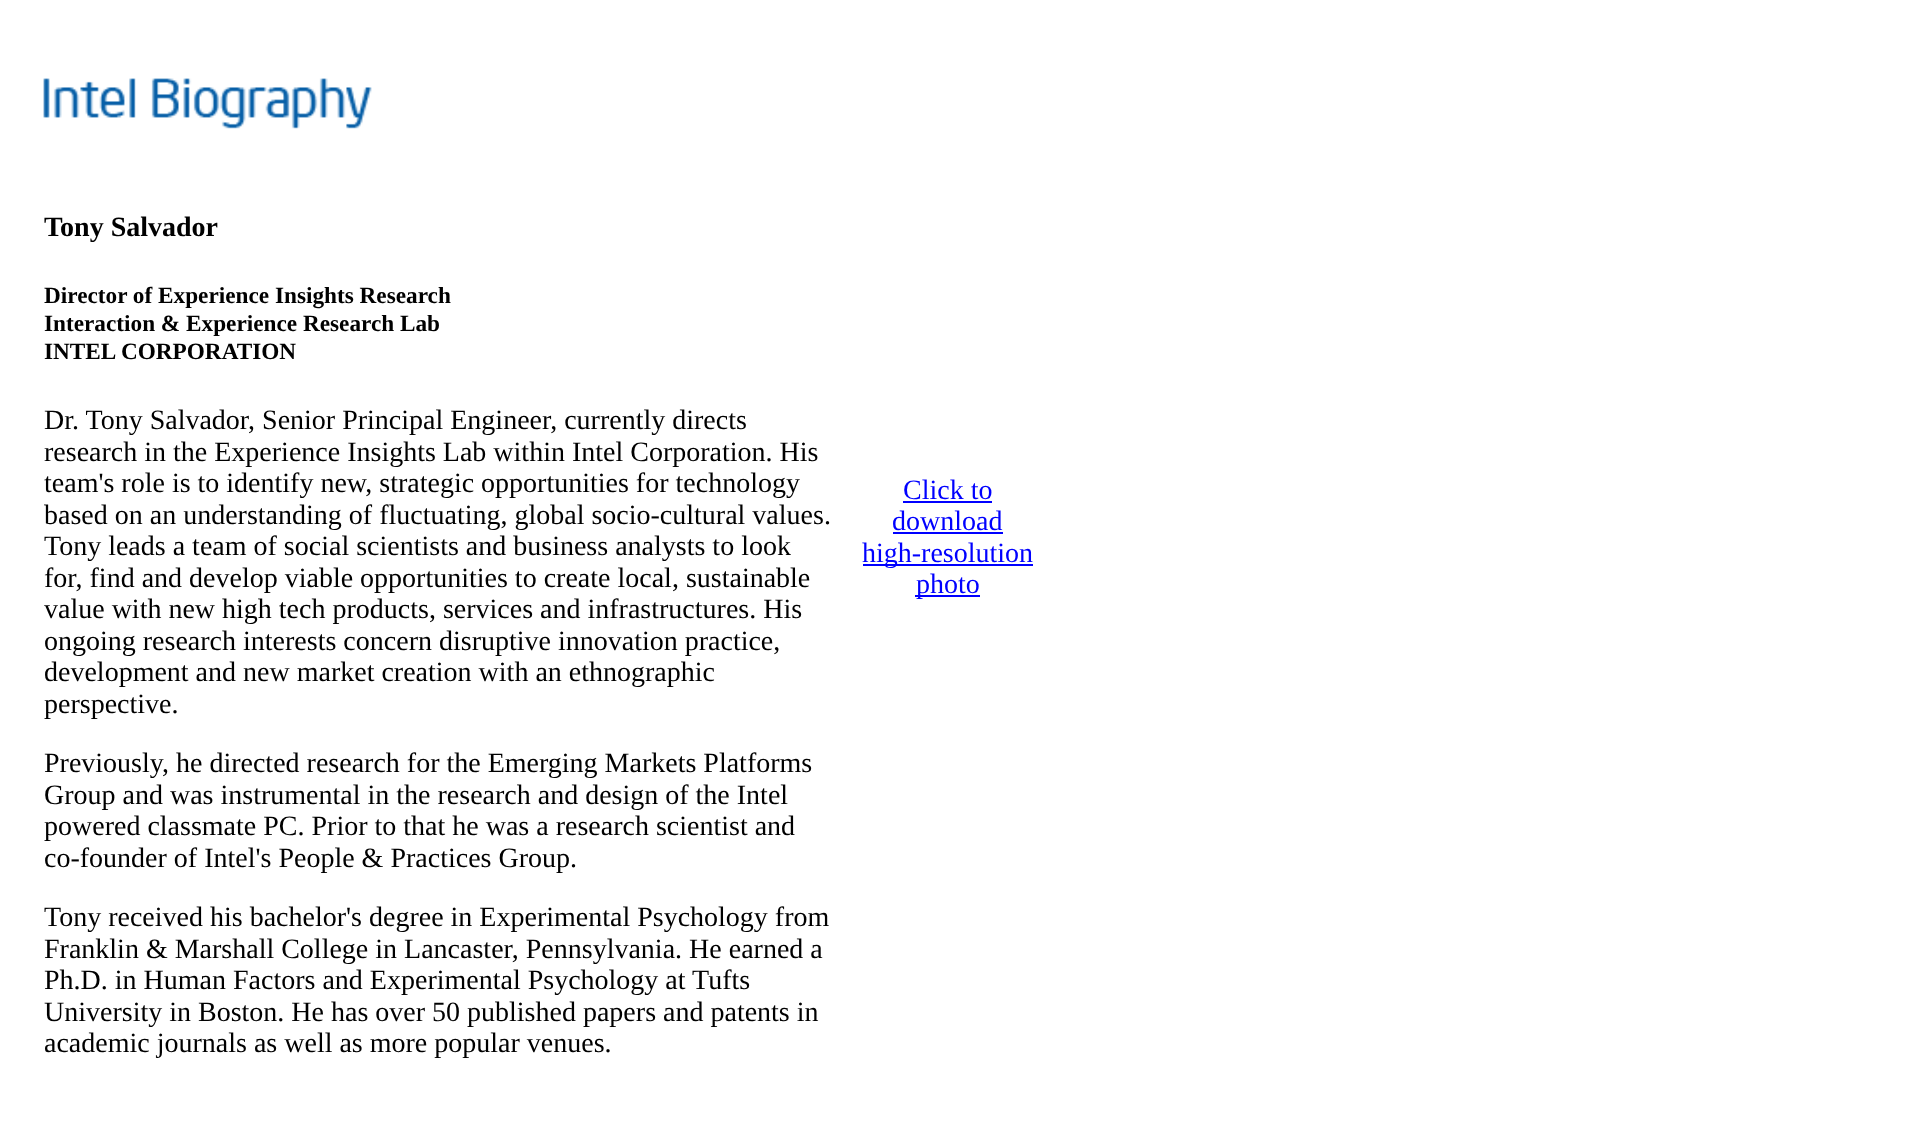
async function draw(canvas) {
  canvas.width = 1915
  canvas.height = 1131
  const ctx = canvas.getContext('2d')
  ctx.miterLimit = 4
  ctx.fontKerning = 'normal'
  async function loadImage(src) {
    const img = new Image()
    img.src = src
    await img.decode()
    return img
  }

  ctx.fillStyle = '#fff'
  ctx.fillRect(0, 0, 1915, 1131)
  ctx.drawImage(await loadImage('image0.png'), 43, 78, 329, 51)
  ctx.font = 'bold 28px Liberation Serif'
  ctx.fillStyle = '#000'
  ctx.fillText('Tony Salvador', 44, 236)
  ctx.font = 'bold 23.25px Liberation Serif'
  ctx.fillText('Director of Experience Insights Research', 44, 303)
  ctx.fillText('Interaction & Experience Research Lab', 44, 331)
  ctx.fillText('INTEL CORPORATION', 44, 359)
  ctx.font = '28px Liberation Serif'
  ctx.fillText('Dr. Tony Salvador, Senior Principal Engineer, currently directs', 44, 429)
  ctx.fillText('research in the Experience Insights Lab within Intel Corporation. His', 44, 461)
  ctx.fillText('team\'s role is to identify new, strategic opportunities for technology', 44, 492)
  ctx.fillText('based on an understanding of fluctuating, global socio-cultural values.', 44, 524)
  ctx.fillText('Tony leads a team of social scientists and business analysts to look', 44, 555)
  ctx.fillText('for, find and develop viable opportunities to create local, sustainable', 44, 587)
  ctx.fillText('value with new high tech products, services and infrastructures. His', 44, 618)
  ctx.fillText('ongoing research interests concern disruptive innovation practice,', 44, 650)
  ctx.fillText('development and new market creation with an ethnographic', 44, 681)
  ctx.fillText('perspective.', 44, 713)
  ctx.fillText('Previously, he directed research for the Emerging Markets Platforms', 44, 772)
  ctx.fillText('Group and was instrumental in the research and design of the Intel', 44, 804)
  ctx.fillText('powered classmate PC. Prior to that he was a research scientist and', 44, 835)
  ctx.fillText('co-founder of Intel\'s People & Practices Group.', 44, 867)
  ctx.fillText('Tony received his bachelor\'s degree in Experimental Psychology from', 44, 926)
  ctx.fillText('Franklin & Marshall College in Lancaster, Pennsylvania. He earned a', 44, 958)
  ctx.fillText('Ph.D. in Human Factors and Experimental Psychology at Tufts', 44, 989)
  ctx.fillText('University in Boston. He has over 50 published papers and patents in', 44, 1021)
  ctx.fillText('academic journals as well as more popular venues.', 44, 1052)
  ctx.fillStyle = '#00f'
  ctx.fillText('Click to', 903, 499)
  ctx.fillRect(903, 501, 89, 2)
  ctx.fillText('download', 892, 530)
  ctx.fillRect(893, 532, 110, 2)
  ctx.fillRect(863, 564, 170, 2)
  ctx.fillText('high-resolution', 862, 562)
  ctx.fillRect(915, 595, 65, 2)
  ctx.fillText('photo', 916, 593)
}

draw(document.querySelector('canvas'))
